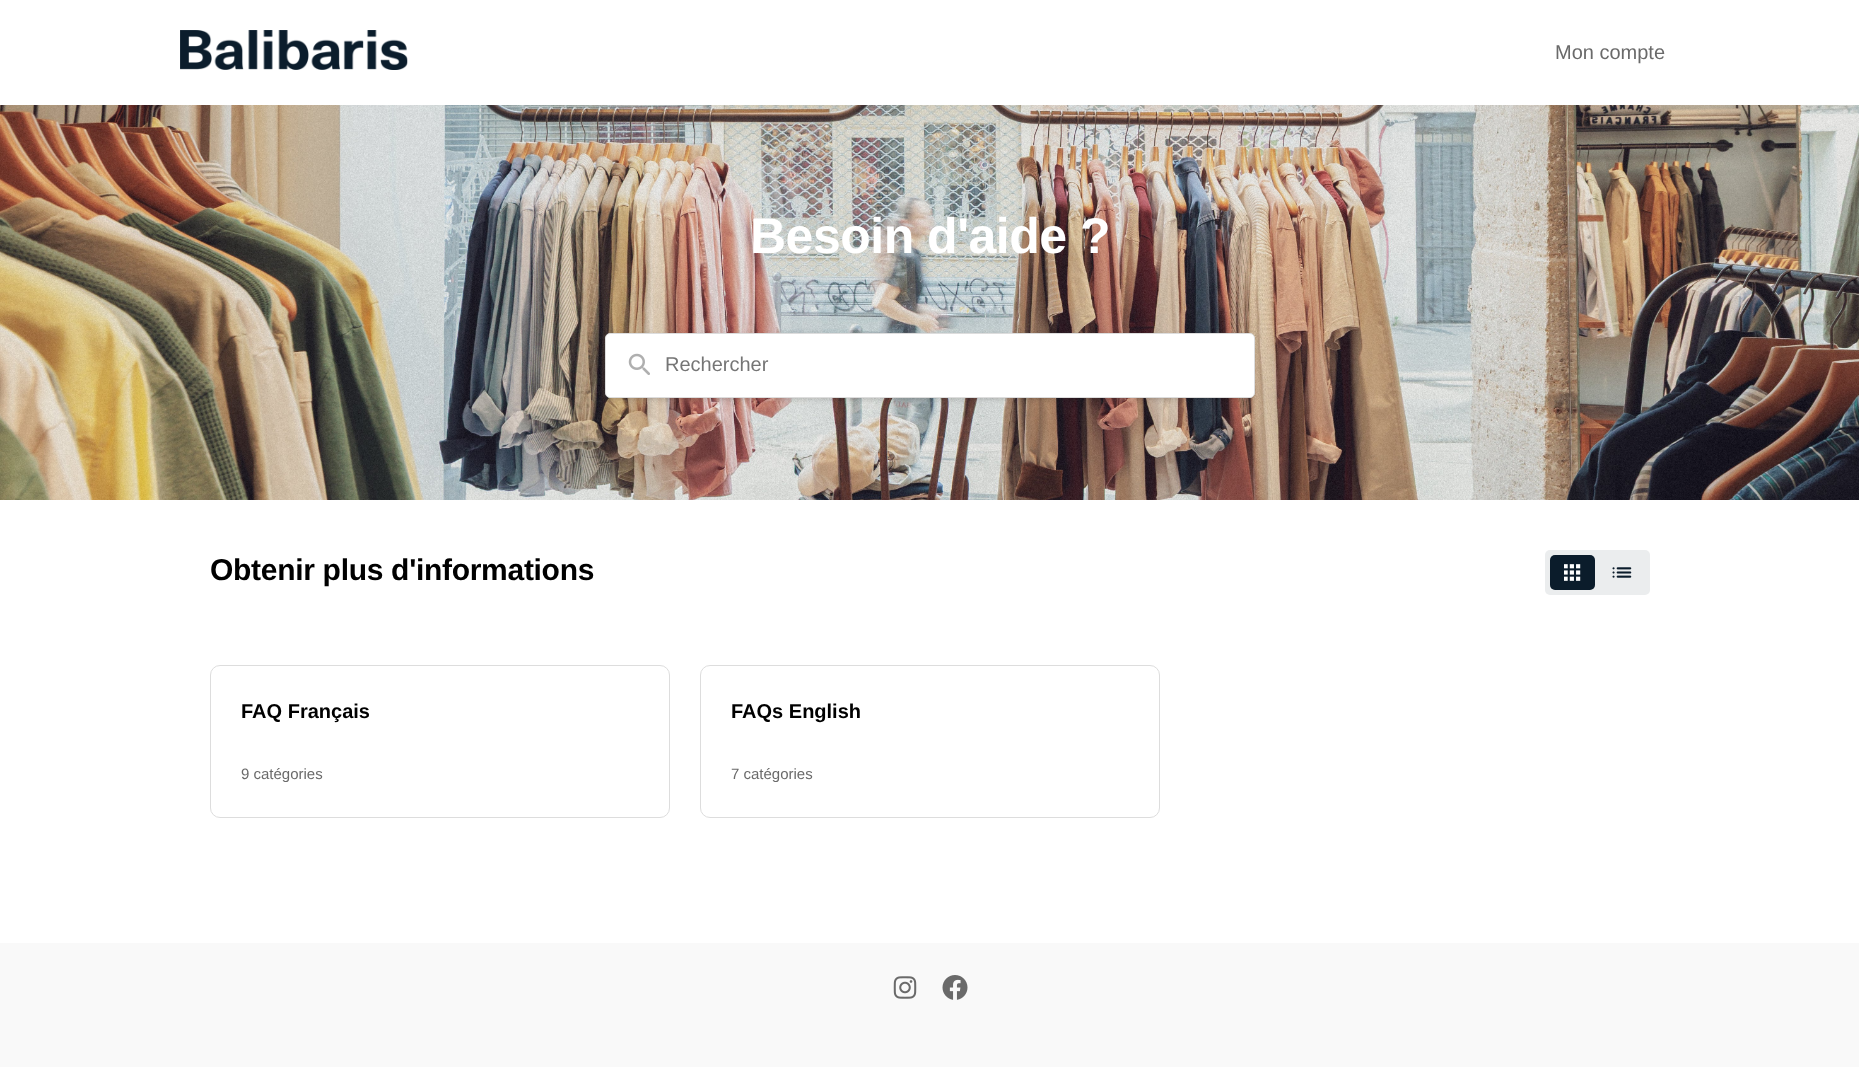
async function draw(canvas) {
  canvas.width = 1859
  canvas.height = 1067
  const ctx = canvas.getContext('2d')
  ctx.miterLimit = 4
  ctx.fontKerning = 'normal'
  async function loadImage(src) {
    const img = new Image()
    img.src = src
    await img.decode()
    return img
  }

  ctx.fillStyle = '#fff'
  ctx.fillRect(0, 0, 1859, 1067)
  ctx.drawImage(await loadImage('image0.png'), 180, 30, 228, 40)
  ctx.font = '20px Liberation Sans'
  ctx.fillStyle = '#6a6a6a'
  ctx.fillText('Mon compte', 1555, 59)
  ctx.drawImage(await loadImage('image1.png'), 0, 105, 1859, 395)
  ctx.letterSpacing = '-0.5px'
  ctx.font = 'bold 50px Liberation Sans'
  ctx.fillStyle = '#fff'
  ctx.fillText('Besoin d\'aide ?', 750, 253)
  ctx.fillStyle = '#16161629'
  ctx.filter = 'blur(2.5px)'
  ctx.beginPath()
  ctx.roundRect(605, 335, 650, 65, 5)
  ctx.fill()
  ctx.filter = 'none'
  ctx.fillStyle = '#fff'
  ctx.beginPath()
  ctx.roundRect(605.5, 333.5, 649, 64, 4.5)
  ctx.fill()
  ctx.strokeStyle = '#ddd'
  ctx.stroke()
  ctx.drawImage(await loadImage('image2.png'), 628, 353, 22, 22)
  ctx.letterSpacing = '0px'
  ctx.font = '20px Liberation Sans'
  ctx.fillStyle = '#757575'
  ctx.fillText('Rechercher', 665, 371)
  ctx.letterSpacing = '-0.3px'
  ctx.font = 'bold 30px Liberation Sans'
  ctx.fillStyle = '#000'
  ctx.fillText('Obtenir plus d\'informations', 210, 580)
  ctx.fillStyle = '#ebedee'
  ctx.beginPath()
  ctx.roundRect(1545, 550, 105, 45, 5)
  ctx.fill()
  ctx.fillStyle = '#0b1c2b'
  ctx.beginPath()
  ctx.roundRect(1550, 555, 45, 35, 5)
  ctx.fill()
  ctx.drawImage(await loadImage('image3.png'), 1564, 564, 68, 17)
  ctx.beginPath()
  ctx.roundRect(210.5, 665.5, 459, 152, 9.5)
  ctx.stroke()
  ctx.letterSpacing = '0px'
  ctx.font = 'bold 20px Liberation Sans'
  ctx.fillStyle = '#000'
  ctx.fillText('FAQ Français', 241, 718)
  ctx.font = '15px Liberation Sans'
  ctx.fillStyle = '#6a6a6a'
  ctx.fillText('9 catégories', 241, 779)
  ctx.beginPath()
  ctx.roundRect(700.5, 665.5, 459, 152, 9.5)
  ctx.stroke()
  ctx.font = 'bold 20px Liberation Sans'
  ctx.fillStyle = '#000'
  ctx.fillText('FAQs English', 731, 718)
  ctx.font = '15px Liberation Sans'
  ctx.fillStyle = '#6a6a6a'
  ctx.fillText('7 catégories', 731, 779)
  ctx.fillStyle = '#f9f9f9'
  ctx.fillRect(0, 943, 1859, 124)
  ctx.drawImage(await loadImage('image4.png'), 893, 976, 24, 23)
  ctx.drawImage(await loadImage('image5.png'), 942, 975, 26, 25)
}

draw(document.querySelector('canvas'))
